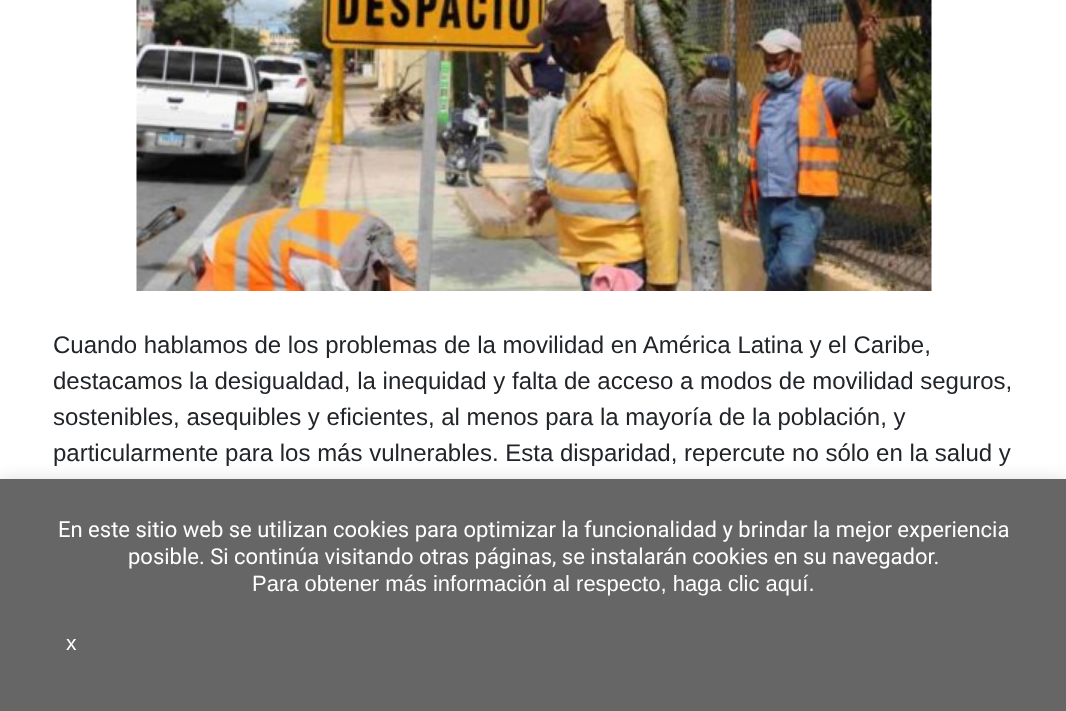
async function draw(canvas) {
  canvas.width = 1066
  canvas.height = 711
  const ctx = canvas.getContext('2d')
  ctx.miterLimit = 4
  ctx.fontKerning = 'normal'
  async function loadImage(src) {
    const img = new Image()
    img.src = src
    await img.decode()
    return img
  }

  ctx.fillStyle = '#fff'
  ctx.fillRect(0, 0, 1066, 711)
  ctx.drawImage(await loadImage('image0.png'), 136, 0, 796, 291)
  ctx.font = '24px Liberation Sans'
  ctx.fillStyle = '#212529'
  ctx.fillText('Cuando hablamos de los problemas de la movilidad en América Latina y el Caribe,', 53, 353)
  ctx.fillText('destacamos la desigualdad, la inequidad y falta de acceso a modos de movilidad seguros,', 53, 389)
  ctx.fillText('sostenibles, asequibles y eficientes, al menos para la mayoría de la población, y', 53, 425)
  ctx.fillText('particularmente para los más vulnerables. Esta disparidad, repercute no sólo en la salud y', 53, 461)
  ctx.fillStyle = '#acabab4d'
  ctx.filter = 'blur(7.5px)'
  ctx.beginPath()
  ctx.rect(0, 477, 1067, 233)
  ctx.fill()
  ctx.filter = 'none'
  ctx.fillStyle = '#666'
  ctx.fillRect(0, 479, 1066, 232)
  ctx.font = '22px Roboto'
  ctx.fillStyle = '#fff'
  ctx.fillText('En este sitio web se utilizan cookies para optimizar la funcionalidad y brindar la mejor experiencia', 58, 537)
  ctx.fillText('posible. Si continúa visitando otras páginas, se instalarán cookies en su navegador.', 128, 564)
  ctx.font = '22px Liberation Sans'
  ctx.fillText('Para obtener más información al respecto, haga clic aquí.', 252, 591)
  ctx.font = '21px Liberation Sans'
  ctx.fillText('x', 66, 650)
}

draw(document.querySelector('canvas'))
